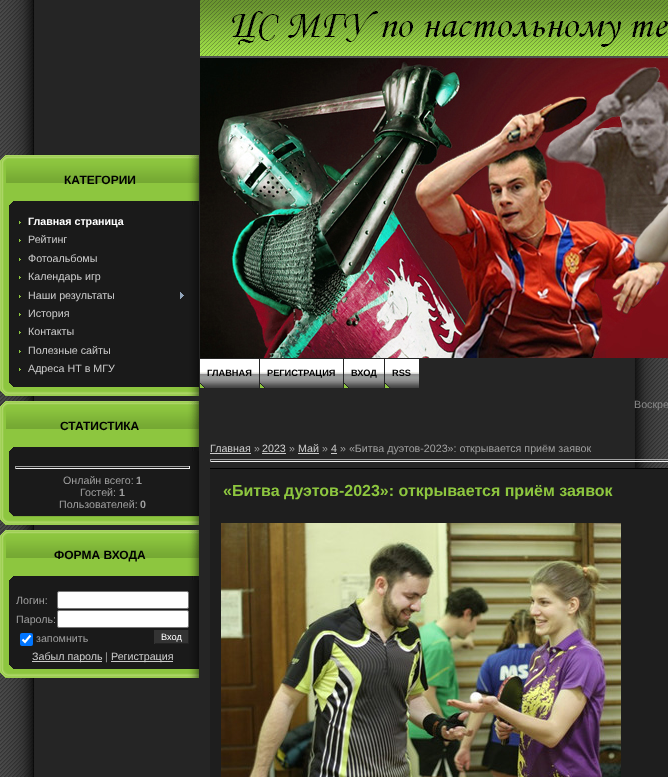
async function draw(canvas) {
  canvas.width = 668
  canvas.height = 777
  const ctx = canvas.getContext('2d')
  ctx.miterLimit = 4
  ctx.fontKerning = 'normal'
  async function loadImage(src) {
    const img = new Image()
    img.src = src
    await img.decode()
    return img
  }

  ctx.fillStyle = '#fff'
  ctx.fillRect(0, 0, 668, 777)
  ctx.drawImage(await loadImage('image0.png'), 0, 0, 668, 777)
  ctx.drawImage(await loadImage('image1.png'), 0, 155, 199, 50)
  ctx.font = 'bold 12px Liberation Sans'
  ctx.fillStyle = '#000'
  ctx.fillText('КАТЕГОРИИ', 64, 184)
  ctx.drawImage(await loadImage('image2.png'), 0, 205, 199, 191)
  ctx.drawImage(await loadImage('image3.png'), 19, 221, 2, 3)
  ctx.font = 'bold 10.7px Liberation Sans'
  ctx.fillStyle = '#fff'
  ctx.fillText('Главная страница', 28, 225)
  ctx.drawImage(await loadImage('image3.png'), 19, 239, 2, 3)
  ctx.font = '10.7px Liberation Sans'
  ctx.fillStyle = '#ccc'
  ctx.fillText('Рейтинг', 28, 243)
  ctx.drawImage(await loadImage('image3.png'), 19, 258, 2, 3)
  ctx.fillText('Фотоальбомы', 28, 262)
  ctx.drawImage(await loadImage('image3.png'), 19, 276, 2, 3)
  ctx.fillText('Календарь игр', 28, 280)
  ctx.drawImage(await loadImage('image3.png'), 19, 295, 2, 3)
  ctx.fillText('Наши результаты', 28, 299)
  ctx.drawImage(await loadImage('image4.png'), 180, 292, 4, 7)
  ctx.drawImage(await loadImage('image3.png'), 19, 313, 2, 3)
  ctx.fillText('История', 28, 317)
  ctx.drawImage(await loadImage('image3.png'), 19, 331, 2, 3)
  ctx.fillText('Контакты', 28, 335)
  ctx.drawImage(await loadImage('image3.png'), 19, 350, 2, 3)
  ctx.fillText('Полезные сайты', 28, 354)
  ctx.drawImage(await loadImage('image3.png'), 19, 368, 2, 3)
  ctx.fillText('Адреса НТ в МГУ', 28, 372)
  ctx.drawImage(await loadImage('image5.png'), 0, 401, 199, 50)
  ctx.font = 'bold 12px Liberation Sans'
  ctx.fillStyle = '#000'
  ctx.fillText('СТАТИСТИКА', 60, 430)
  ctx.drawImage(await loadImage('image6.png'), 0, 451, 199, 74)
  ctx.fillStyle = '#9f9f9f'
  ctx.fillRect(15, 466, 175, 1)
  ctx.fillStyle = '#eee'
  ctx.fillRect(189, 466, 1, 3)
  ctx.fillRect(15, 468, 175, 1)
  ctx.fillStyle = '#9f9f9f'
  ctx.fillRect(15, 466, 1, 3)
  ctx.font = '10.7px Liberation Sans'
  ctx.fillText('Онлайн всего:', 63, 484)
  ctx.font = 'bold 10.7px Liberation Sans'
  ctx.fillText('1', 136, 484)
  ctx.font = '10.7px Liberation Sans'
  ctx.fillText('Гостей:', 80, 496)
  ctx.font = 'bold 10.7px Liberation Sans'
  ctx.fillText('1', 119, 496)
  ctx.font = '10.7px Liberation Sans'
  ctx.fillText('Пользователей:', 59, 508)
  ctx.font = 'bold 10.7px Liberation Sans'
  ctx.fillText('0', 140, 508)
  ctx.drawImage(await loadImage('image7.png'), 0, 530, 199, 50)
  ctx.font = 'bold 12px Liberation Sans'
  ctx.fillStyle = '#000'
  ctx.fillText('ФОРМА ВХОДА', 54, 559)
  ctx.drawImage(await loadImage('image8.png'), 0, 580, 199, 98)
  ctx.font = '10.7px Liberation Sans'
  ctx.fillStyle = '#9f9f9f'
  ctx.fillText('Логин:', 16, 604)
  ctx.fillStyle = '#fff'
  ctx.beginPath()
  ctx.roundRect(57.5, 591.5, 131, 17, 1.5)
  ctx.fill()
  ctx.strokeStyle = '#767676'
  ctx.stroke()
  ctx.fillStyle = '#9f9f9f'
  ctx.fillText('Пароль:', 16, 623)
  ctx.fillStyle = '#fff'
  ctx.beginPath()
  ctx.roundRect(57.5, 610.5, 131, 17, 1.5)
  ctx.fill()
  ctx.stroke()
  ctx.fillStyle = '#0075ff'
  ctx.beginPath()
  ctx.roundRect(20, 633, 13, 13, 2)
  ctx.fill()
  ctx.beginPath()
  ctx.moveTo(22.5, 639.5)
  ctx.lineTo(25, 642)
  ctx.lineTo(30.5, 635.5)
  ctx.strokeStyle = '#fff'
  ctx.lineWidth = 2.1
  ctx.stroke()
  ctx.fillStyle = '#9f9f9f'
  ctx.fillText('запомнить', 36, 642)
  ctx.fillStyle = '#333'
  ctx.fillRect(155, 630, 33, 13)
  ctx.fillStyle = '#222'
  ctx.fillRect(188, 630, 1, 14)
  ctx.fillRect(154, 643, 35, 1)
  ctx.fillStyle = '#333'
  ctx.fillRect(154, 630, 1, 14)
  ctx.font = '9.25px Liberation Sans'
  ctx.fillStyle = '#fff'
  ctx.fillText('Вход', 161, 640)
  ctx.fillStyle = '#ccc'
  ctx.fillRect(32, 661, 70, 1)
  ctx.font = '10.7px Liberation Sans'
  ctx.fillText('Забыл пароль', 32, 660)
  ctx.fillStyle = '#9f9f9f'
  ctx.fillText('|', 105, 660)
  ctx.fillStyle = '#ccc'
  ctx.fillRect(111, 661, 62, 1)
  ctx.fillText('Регистрация', 111, 660)
  ctx.drawImage(await loadImage('image9.png'), 200, 0, 468, 58)
  ctx.drawImage(await loadImage('image10.png'), 200, 58, 468, 300)
  ctx.drawImage(await loadImage('image11.png'), 200, 359, 59, 29)
  ctx.font = 'bold 9.25px Liberation Sans'
  ctx.fillStyle = '#000'
  ctx.fillText('ГЛАВНАЯ', 207, 376)
  ctx.drawImage(await loadImage('image12.png'), 260, 359, 83, 29)
  ctx.fillText('РЕГИСТРАЦИЯ', 267, 376)
  ctx.drawImage(await loadImage('image13.png'), 344, 359, 40, 29)
  ctx.fillText('ВХОД', 351, 376)
  ctx.drawImage(await loadImage('image14.png'), 385, 359, 34, 29)
  ctx.fillText('RSS', 392, 376)
  ctx.font = '10.7px Liberation Sans'
  ctx.fillStyle = '#898989'
  ctx.fillText('Воскре', 634, 408)
  ctx.fillStyle = '#ccc'
  ctx.fillText('Главная', 210, 452)
  ctx.fillRect(210, 453, 41, 1)
  ctx.fillStyle = '#9f9f9f'
  ctx.fillText('»', 254, 452)
  ctx.fillStyle = '#ccc'
  ctx.fillText('2023', 262, 452)
  ctx.fillRect(262, 453, 24, 1)
  ctx.fillStyle = '#9f9f9f'
  ctx.fillText('»', 289, 452)
  ctx.fillStyle = '#ccc'
  ctx.fillText('Май', 298, 452)
  ctx.fillRect(298, 453, 21, 1)
  ctx.fillStyle = '#9f9f9f'
  ctx.fillText('»', 322, 452)
  ctx.fillStyle = '#ccc'
  ctx.fillText('4', 331, 452)
  ctx.fillRect(331, 453, 6, 1)
  ctx.fillStyle = '#9f9f9f'
  ctx.fillText('» «Битва дуэтов-2023»: открывается приём заявок', 340, 452)
  ctx.fillRect(210, 459, 458, 1)
  ctx.fillStyle = '#eee'
  ctx.fillRect(210, 461, 458, 1)
  ctx.fillStyle = '#9f9f9f'
  ctx.fillRect(210, 459, 1, 3)
  ctx.fillStyle = '#1e1e1e'
  ctx.fillRect(210, 469, 458, 308)
  ctx.fillStyle = '#000'
  ctx.fillRect(210, 468, 458, 1)
  ctx.font = 'bold 16px Liberation Sans'
  ctx.fillStyle = '#8dc63f'
  ctx.fillText('«Битва дуэтов-2023»: открывается приём заявок', 223, 496)
  ctx.drawImage(await loadImage('image15.png'), 221, 523, 400, 254)
}

draw(document.querySelector('canvas'))
